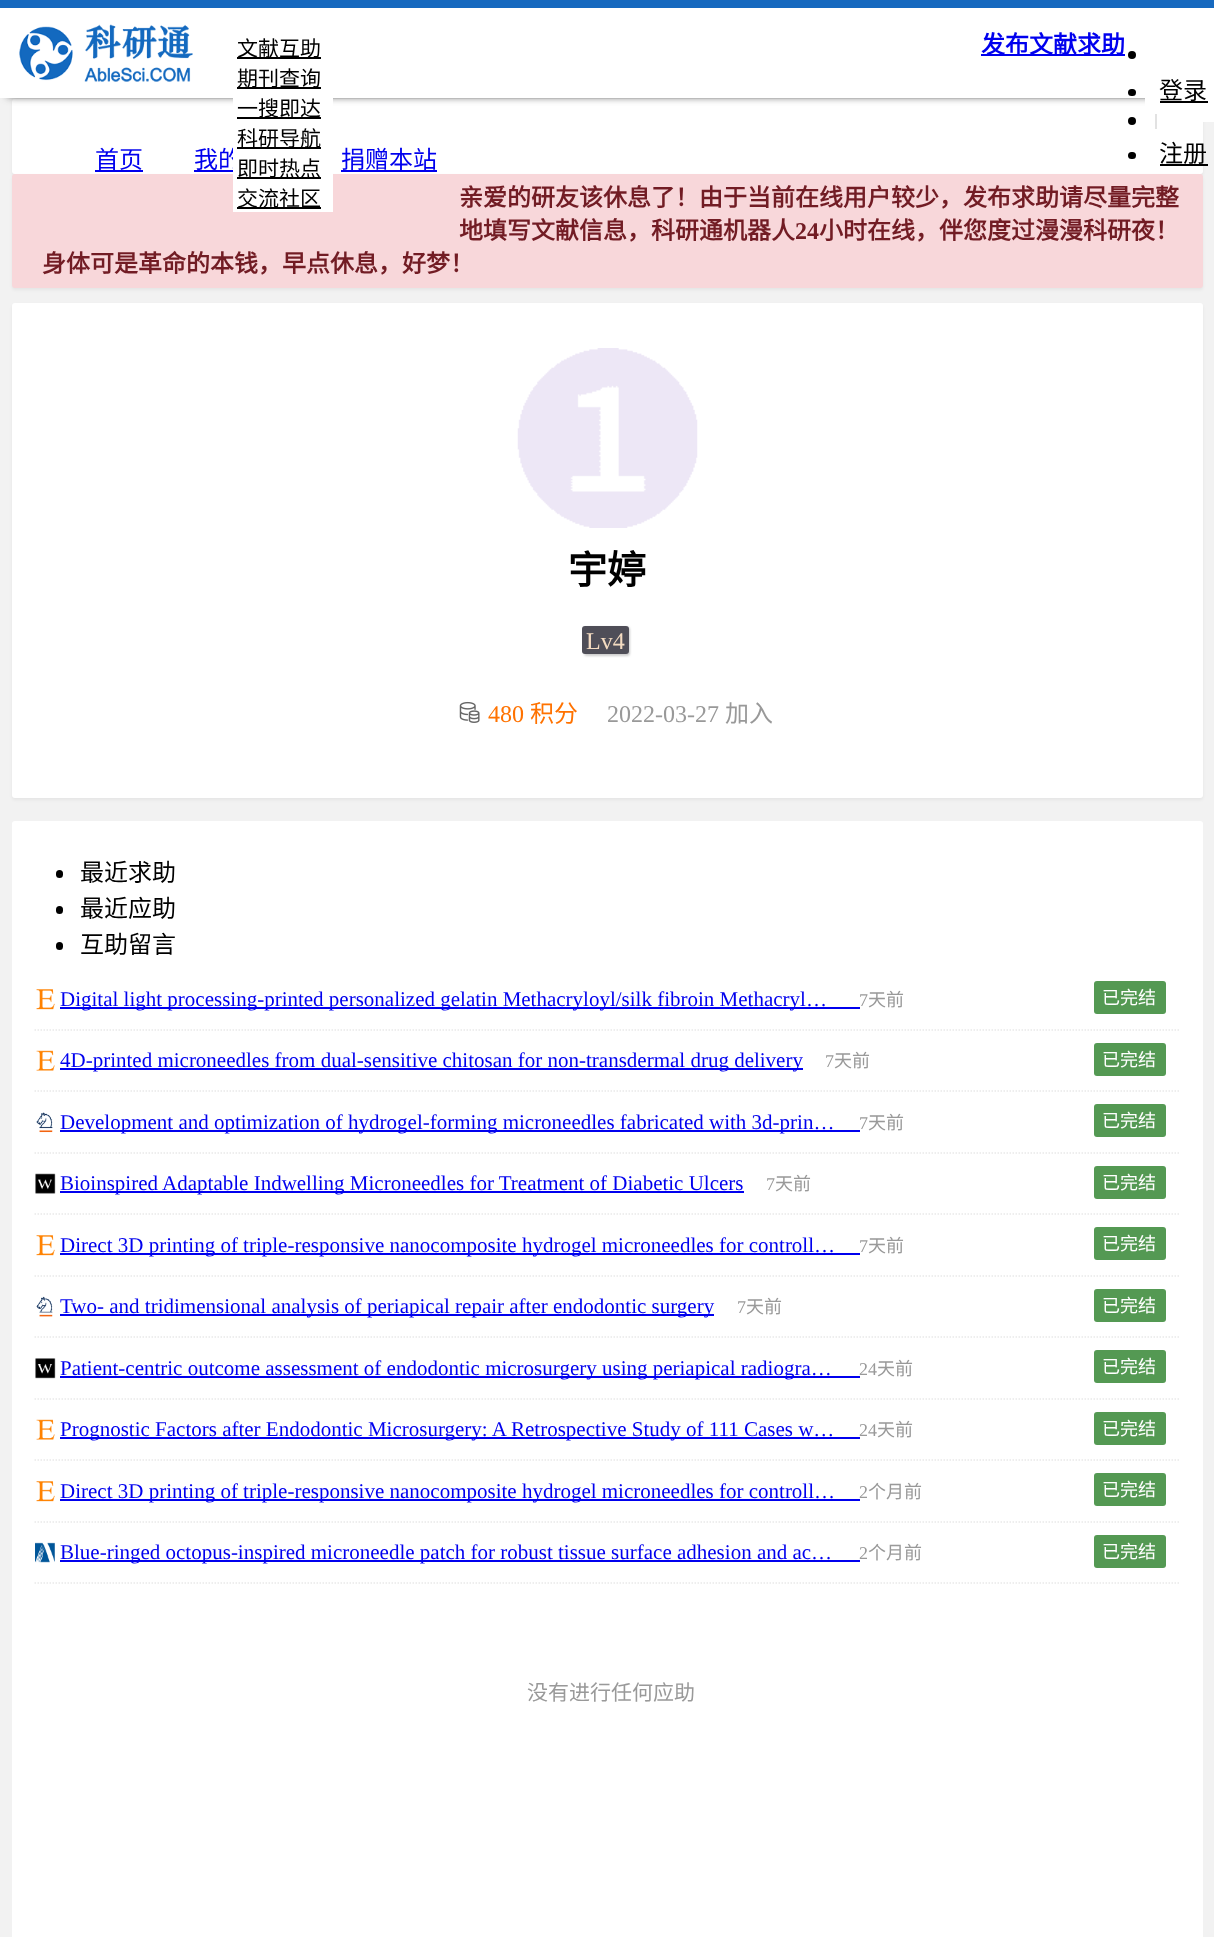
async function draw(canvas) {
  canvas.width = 1214
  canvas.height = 1937
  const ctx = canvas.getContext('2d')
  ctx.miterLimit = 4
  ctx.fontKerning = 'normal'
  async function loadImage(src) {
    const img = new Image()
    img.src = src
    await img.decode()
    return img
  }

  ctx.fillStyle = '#f2f2f2'
  ctx.fillRect(0, 0, 1214, 1937)
  ctx.fillStyle = '#0000000d'
  ctx.filter = 'blur(1.5px)'
  ctx.beginPath()
  ctx.roundRect(12, 101, 1191, 75, 3)
  ctx.fill()
  ctx.filter = 'none'
  ctx.fillStyle = '#fff'
  ctx.beginPath()
  ctx.roundRect(12, 99, 1191, 75, 3)
  ctx.fill()
  ctx.fillStyle = '#333'
  ctx.filter = 'blur(4px)'
  ctx.beginPath()
  ctx.rect(8, 14, 1200, 82)
  ctx.fill()
  ctx.filter = 'none'
  ctx.fillStyle = '#fff'
  ctx.fillRect(0, 8, 1214, 90)
  ctx.fillStyle = '#1669bf'
  ctx.fillRect(0, 0, 1214, 8)
  ctx.drawImage(await loadImage('image0.png'), 19, 24, 174, 58)
  ctx.font = '24px Noto Sans CJK SC'
  ctx.fillStyle = '#00e'
  ctx.fillText('我的', 194, 168)
  ctx.fillStyle = '#0000000d'
  ctx.filter = 'blur(1.5px)'
  ctx.beginPath()
  ctx.roundRect(12, 176, 1191, 114, 3)
  ctx.fill()
  ctx.filter = 'none'
  ctx.fillStyle = '#f8d7da'
  ctx.beginPath()
  ctx.roundRect(12, 174, 1191, 114, 3)
  ctx.fill()
  ctx.fillStyle = '#fff'
  ctx.fillRect(233, 98, 100, 114)
  ctx.fillStyle = '#000'
  ctx.fillRect(237, 57, 84, 2)
  ctx.font = '21px Noto Sans CJK SC'
  ctx.fillText('文献互助', 237, 56)
  ctx.fillRect(237, 87, 84, 2)
  ctx.fillText('期刊查询', 237, 86)
  ctx.fillRect(237, 117, 84, 2)
  ctx.fillText('一搜即达', 237, 116)
  ctx.fillRect(237, 147, 84, 2)
  ctx.fillText('科研导航', 237, 146)
  ctx.fillRect(237, 177, 84, 2)
  ctx.fillText('即时热点', 237, 176)
  ctx.fillRect(237, 207, 84, 2)
  ctx.fillText('交流社区', 237, 206)
  ctx.fillStyle = '#00e'
  ctx.fillRect(981, 54, 144, 2)
  ctx.font = 'bold 24px Noto Sans CJK SC'
  ctx.fillText('发布文献求助', 981, 53)
  ctx.fillStyle = '#fff'
  ctx.fillRect(1145, 98, 69, 24)
  ctx.fillStyle = '#000'
  ctx.beginPath()
  ctx.arc(1132, 55, 4, 0, 2 * Math.PI)
  ctx.fill()
  ctx.beginPath()
  ctx.roundRect(1128, 89, 8, 7, 3.5)
  ctx.fill()
  ctx.font = '24px Noto Sans CJK SC'
  ctx.fillText('登录', 1159, 99)
  ctx.fillRect(1160, 101, 48, 2)
  ctx.beginPath()
  ctx.arc(1132, 121, 4, 0, 2 * Math.PI)
  ctx.fill()
  ctx.fillStyle = '#e2e2e2'
  ctx.fillRect(1155, 114, 2, 15)
  ctx.fillStyle = '#000'
  ctx.beginPath()
  ctx.roundRect(1128, 152, 8, 7, 3.5)
  ctx.fill()
  ctx.fillRect(1160, 164, 48, 2)
  ctx.fillText('注册', 1159, 162)
  ctx.fillStyle = '#00e'
  ctx.fillText('首页', 95, 168)
  ctx.fillRect(95, 170, 48, 2)
  ctx.fillRect(194, 170, 39, 2)
  ctx.fillText('捐赠本站', 341, 168)
  ctx.fillRect(341, 170, 96, 2)
  ctx.font = 'bold 24px Noto Sans CJK SC'
  ctx.fillStyle = '#721c24'
  ctx.fillText('亲爱的研友该休息了！由于当前在线用户较少，发布求助请尽量完整', 459, 206)
  ctx.fillText('地填写文献信息，科研通机器人', 459, 239)
  ctx.font = 'bold 24px Liberation Serif'
  ctx.fillText('24', 795, 239)
  ctx.font = 'bold 24px Noto Sans CJK SC'
  ctx.fillText('小时在线，伴您度过漫漫科研夜！', 819, 239)
  ctx.fillText('身体可是革命的本钱，早点休息，好梦！', 42, 272)
  ctx.fillStyle = '#0000000d'
  ctx.filter = 'blur(1.5px)'
  ctx.beginPath()
  ctx.roundRect(12, 305, 1191, 495, 3)
  ctx.fill()
  ctx.filter = 'none'
  ctx.fillStyle = '#fff'
  ctx.beginPath()
  ctx.roundRect(12, 303, 1191, 495, 3)
  ctx.fill()
  ctx.drawImage(await loadImage('image1.png'), 517, 348, 181, 180)
  ctx.font = 'bold 39px Noto Sans CJK SC'
  ctx.fillStyle = '#000'
  ctx.fillText('宇婷', 568, 584)
  ctx.fillStyle = '#cdcdcd'
  ctx.filter = 'blur(1px)'
  ctx.beginPath()
  ctx.roundRect(584, 627, 46, 29, 3)
  ctx.fill()
  ctx.filter = 'none'
  ctx.fillStyle = '#4f4e58'
  ctx.beginPath()
  ctx.roundRect(582, 626, 47, 28, 3)
  ctx.fill()
  ctx.font = '24px Liberation Serif'
  ctx.fillStyle = '#f3dbc1'
  ctx.fillText('Lv4', 586, 649)
  ctx.drawImage(await loadImage('image2.png'), 459, 701, 21, 22)
  ctx.fillStyle = '#ff7200'
  ctx.fillText('480', 488, 722)
  ctx.font = '24px Noto Sans CJK SC'
  ctx.fillText('积分', 530, 722)
  ctx.font = '24px Liberation Serif'
  ctx.fillStyle = '#999'
  ctx.fillText('2022-03-27', 607, 722)
  ctx.font = '24px Noto Sans CJK SC'
  ctx.fillText('加入', 725, 722)
  ctx.fillStyle = '#fff'
  ctx.beginPath()
  ctx.roundRect(12, 821, 1191, 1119, 3)
  ctx.fill()
  ctx.fillStyle = '#000'
  ctx.beginPath()
  ctx.roundRect(56, 870, 7, 8, 3.5)
  ctx.fill()
  ctx.fillText('最近求助', 80, 881)
  ctx.beginPath()
  ctx.roundRect(56, 906, 7, 8, 3.5)
  ctx.fill()
  ctx.fillText('最近应助', 80, 917)
  ctx.beginPath()
  ctx.roundRect(56, 942, 7, 8, 3.5)
  ctx.fill()
  ctx.fillText('互助留言', 80, 953)
  ctx.beginPath()
  ctx.moveTo(34.5, 1030)
  ctx.lineTo(1180.5, 1030)
  ctx.strokeStyle = '#e9e9e9'
  ctx.lineWidth = 1.5
  ctx.setLineDash([1.5, 1.5])
  ctx.stroke()
  ctx.drawImage(await loadImage('image3.png'), 36, 989, 19, 21)
  ctx.fillStyle = '#00e'
  ctx.fillRect(60, 1007, 800, 2)
  ctx.font = '21px Liberation Serif'
  ctx.fillText('Digital light processing-printed personalized gelatin Methacryloyl/silk fibroin Methacryl…', 60, 1006)
  ctx.font = '18px Liberation Serif'
  ctx.fillStyle = '#999'
  ctx.fillText('7', 859, 1006)
  ctx.font = '18px Noto Sans CJK SC'
  ctx.fillText('天前', 868, 1006)
  ctx.fillStyle = '#549953'
  ctx.beginPath()
  ctx.roundRect(1094, 981, 72, 33, 3)
  ctx.fill()
  ctx.fillStyle = '#fff'
  ctx.fillText('已完结', 1102, 1004)
  ctx.beginPath()
  ctx.moveTo(34.5, 1091)
  ctx.lineTo(1180.5, 1091)
  ctx.stroke()
  ctx.drawImage(await loadImage('image4.png'), 36, 1050, 19, 21)
  ctx.fillStyle = '#00e'
  ctx.fillRect(60, 1068, 743, 2)
  ctx.font = '21px Liberation Serif'
  ctx.fillText('4D-printed microneedles from dual-sensitive chitosan for non-transdermal drug delivery', 60, 1067)
  ctx.font = '18px Liberation Serif'
  ctx.fillStyle = '#999'
  ctx.fillText('7', 825, 1067)
  ctx.font = '18px Noto Sans CJK SC'
  ctx.fillText('天前', 834, 1067)
  ctx.fillStyle = '#549953'
  ctx.beginPath()
  ctx.roundRect(1094, 1043, 72, 33, 3)
  ctx.fill()
  ctx.fillStyle = '#fff'
  ctx.fillText('已完结', 1102, 1066)
  ctx.beginPath()
  ctx.moveTo(34.5, 1153)
  ctx.lineTo(1180.5, 1153)
  ctx.stroke()
  ctx.drawImage(await loadImage('image5.png'), 36, 1112, 17, 21)
  ctx.fillStyle = '#00e'
  ctx.fillRect(60, 1130, 800, 2)
  ctx.font = '21px Liberation Serif'
  ctx.fillText('Development and optimization of hydrogel-forming microneedles fabricated with 3d-prin…', 60, 1129)
  ctx.font = '18px Liberation Serif'
  ctx.fillStyle = '#999'
  ctx.fillText('7', 859, 1129)
  ctx.font = '18px Noto Sans CJK SC'
  ctx.fillText('天前', 868, 1129)
  ctx.fillStyle = '#549953'
  ctx.beginPath()
  ctx.roundRect(1094, 1104, 72, 33, 3)
  ctx.fill()
  ctx.fillStyle = '#fff'
  ctx.fillText('已完结', 1102, 1127)
  ctx.beginPath()
  ctx.moveTo(34.5, 1214)
  ctx.lineTo(1180.5, 1214)
  ctx.stroke()
  ctx.drawImage(await loadImage('image6.png'), 35, 1173, 21, 21)
  ctx.fillStyle = '#00e'
  ctx.fillRect(60, 1191, 684, 2)
  ctx.font = '21px Liberation Serif'
  ctx.fillText('Bioinspired Adaptable Indwelling Microneedles for Treatment of Diabetic Ulcers', 60, 1190)
  ctx.font = '18px Liberation Serif'
  ctx.fillStyle = '#999'
  ctx.fillText('7', 766, 1190)
  ctx.font = '18px Noto Sans CJK SC'
  ctx.fillText('天前', 775, 1190)
  ctx.fillStyle = '#549953'
  ctx.beginPath()
  ctx.roundRect(1094, 1166, 72, 33, 3)
  ctx.fill()
  ctx.fillStyle = '#fff'
  ctx.fillText('已完结', 1102, 1189)
  ctx.beginPath()
  ctx.moveTo(34.5, 1276)
  ctx.lineTo(1180.5, 1276)
  ctx.stroke()
  ctx.drawImage(await loadImage('image3.png'), 36, 1235, 19, 21)
  ctx.fillStyle = '#00e'
  ctx.fillRect(60, 1253, 800, 2)
  ctx.font = '21px Liberation Serif'
  ctx.fillText('Direct 3D printing of triple-responsive nanocomposite hydrogel microneedles for controll…', 60, 1252)
  ctx.font = '18px Liberation Serif'
  ctx.fillStyle = '#999'
  ctx.fillText('7', 859, 1252)
  ctx.font = '18px Noto Sans CJK SC'
  ctx.fillText('天前', 868, 1252)
  ctx.fillStyle = '#549953'
  ctx.beginPath()
  ctx.roundRect(1094, 1227, 72, 33, 3)
  ctx.fill()
  ctx.fillStyle = '#fff'
  ctx.fillText('已完结', 1102, 1250)
  ctx.beginPath()
  ctx.moveTo(34.5, 1337)
  ctx.lineTo(1180.5, 1337)
  ctx.stroke()
  ctx.drawImage(await loadImage('image7.png'), 36, 1296, 17, 21)
  ctx.fillStyle = '#00e'
  ctx.fillRect(60, 1314, 654, 2)
  ctx.font = '21px Liberation Serif'
  ctx.fillText('Two- and tridimensional analysis of periapical repair after endodontic surgery', 60, 1313)
  ctx.font = '18px Liberation Serif'
  ctx.fillStyle = '#999'
  ctx.fillText('7', 737, 1313)
  ctx.font = '18px Noto Sans CJK SC'
  ctx.fillText('天前', 746, 1313)
  ctx.fillStyle = '#549953'
  ctx.beginPath()
  ctx.roundRect(1094, 1289, 72, 33, 3)
  ctx.fill()
  ctx.fillStyle = '#fff'
  ctx.fillText('已完结', 1102, 1312)
  ctx.beginPath()
  ctx.moveTo(34.5, 1399)
  ctx.lineTo(1180.5, 1399)
  ctx.stroke()
  ctx.drawImage(await loadImage('image8.png'), 35, 1358, 21, 21)
  ctx.fillStyle = '#00e'
  ctx.fillRect(60, 1376, 800, 2)
  ctx.font = '21px Liberation Serif'
  ctx.fillText('Patient‐centric outcome assessment of endodontic microsurgery using periapical radiogra…', 60, 1375)
  ctx.font = '18px Liberation Serif'
  ctx.fillStyle = '#999'
  ctx.fillText('24', 859, 1375)
  ctx.font = '18px Noto Sans CJK SC'
  ctx.fillText('天前', 877, 1375)
  ctx.fillStyle = '#549953'
  ctx.beginPath()
  ctx.roundRect(1094, 1350, 72, 33, 3)
  ctx.fill()
  ctx.fillStyle = '#fff'
  ctx.fillText('已完结', 1102, 1373)
  ctx.beginPath()
  ctx.moveTo(34.5, 1460)
  ctx.lineTo(1180.5, 1460)
  ctx.stroke()
  ctx.drawImage(await loadImage('image4.png'), 36, 1419, 19, 21)
  ctx.fillStyle = '#00e'
  ctx.fillRect(60, 1437, 800, 2)
  ctx.font = '21px Liberation Serif'
  ctx.fillText('Prognostic Factors after Endodontic Microsurgery: A Retrospective Study of 111 Cases w…', 60, 1436)
  ctx.font = '18px Liberation Serif'
  ctx.fillStyle = '#999'
  ctx.fillText('24', 859, 1436)
  ctx.font = '18px Noto Sans CJK SC'
  ctx.fillText('天前', 877, 1436)
  ctx.fillStyle = '#549953'
  ctx.beginPath()
  ctx.roundRect(1094, 1412, 72, 33, 3)
  ctx.fill()
  ctx.fillStyle = '#fff'
  ctx.fillText('已完结', 1102, 1435)
  ctx.beginPath()
  ctx.moveTo(34.5, 1522)
  ctx.lineTo(1180.5, 1522)
  ctx.stroke()
  ctx.drawImage(await loadImage('image3.png'), 36, 1481, 19, 21)
  ctx.fillStyle = '#00e'
  ctx.fillRect(60, 1499, 800, 2)
  ctx.font = '21px Liberation Serif'
  ctx.fillText('Direct 3D printing of triple-responsive nanocomposite hydrogel microneedles for controll…', 60, 1498)
  ctx.font = '18px Liberation Serif'
  ctx.fillStyle = '#999'
  ctx.fillText('2', 859, 1498)
  ctx.font = '18px Noto Sans CJK SC'
  ctx.fillText('个月前', 868, 1498)
  ctx.fillStyle = '#549953'
  ctx.beginPath()
  ctx.roundRect(1094, 1473, 72, 33, 3)
  ctx.fill()
  ctx.fillStyle = '#fff'
  ctx.fillText('已完结', 1102, 1496)
  ctx.beginPath()
  ctx.moveTo(34.5, 1583)
  ctx.lineTo(1180.5, 1583)
  ctx.stroke()
  ctx.drawImage(await loadImage('image9.png'), 35, 1542, 20, 21)
  ctx.fillStyle = '#00e'
  ctx.fillRect(60, 1560, 800, 2)
  ctx.font = '21px Liberation Serif'
  ctx.fillText('Blue-ringed octopus-inspired microneedle patch for robust tissue surface adhesion and ac…', 60, 1559)
  ctx.font = '18px Liberation Serif'
  ctx.fillStyle = '#999'
  ctx.fillText('2', 859, 1559)
  ctx.font = '18px Noto Sans CJK SC'
  ctx.fillText('个月前', 868, 1559)
  ctx.fillStyle = '#549953'
  ctx.beginPath()
  ctx.roundRect(1094, 1535, 72, 33, 3)
  ctx.fill()
  ctx.fillStyle = '#fff'
  ctx.fillText('已完结', 1102, 1558)
  ctx.font = '21px Noto Sans CJK SC'
  ctx.fillStyle = '#999'
  ctx.fillText('没有进行任何应助', 527, 1700)
}

draw(document.querySelector('canvas'))
